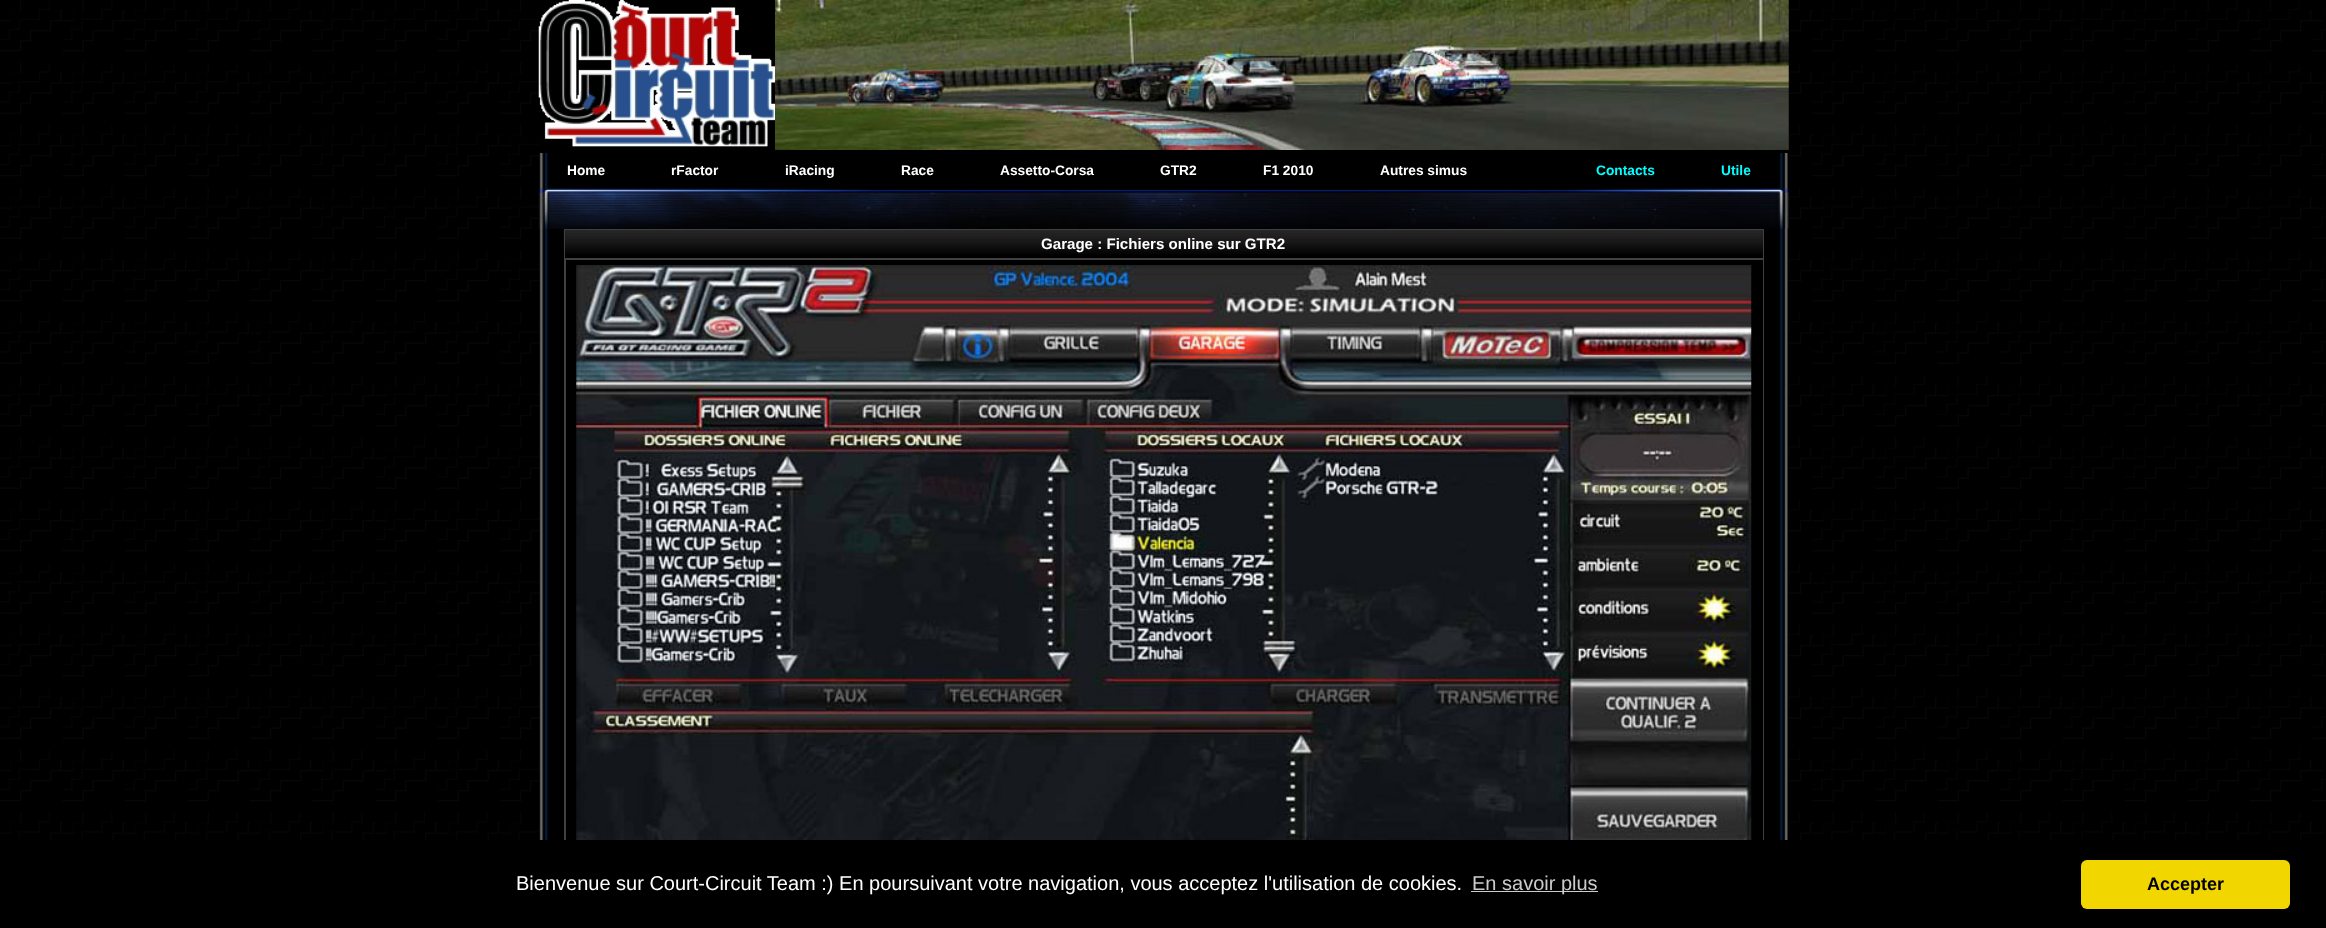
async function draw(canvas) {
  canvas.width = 2326
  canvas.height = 928
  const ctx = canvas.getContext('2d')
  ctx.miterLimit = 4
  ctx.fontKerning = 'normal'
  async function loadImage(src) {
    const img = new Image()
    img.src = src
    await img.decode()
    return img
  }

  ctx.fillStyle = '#fff'
  ctx.fillRect(0, 0, 2326, 928)
  ctx.drawImage(await loadImage('image0.png'), 0, 0, 2326, 840)
  ctx.drawImage(await loadImage('image1.png'), 539, 153, 1250, 687)
  ctx.fillStyle = '#000'
  ctx.fillRect(539, 0, 1250, 153)
  ctx.drawImage(await loadImage('image2.png'), 538, 0, 237, 147)
  ctx.drawImage(await loadImage('image3.png'), 775, 0, 1014, 150)
  ctx.font = 'bold 13.75px Liberation Sans'
  ctx.fillStyle = '#fff'
  ctx.fillText('Home', 567, 175)
  ctx.fillText('rFactor', 671, 175)
  ctx.fillText('iRacing', 785, 175)
  ctx.fillText('Race', 901, 175)
  ctx.fillText('Assetto-Corsa', 1000, 175)
  ctx.fillText('GTR2', 1160, 175)
  ctx.fillText('F1 2010', 1263, 175)
  ctx.fillText('Autres simus', 1380, 175)
  ctx.fillStyle = '#0ff'
  ctx.fillText('Contacts', 1596, 175)
  ctx.fillText('Utile', 1721, 175)
  ctx.drawImage(await loadImage('image4.png'), 538, 188, 1251, 41)
  ctx.drawImage(await loadImage('image5.png'), 563, 230, 1200, 24)
  ctx.fillStyle = '#404040'
  ctx.fillRect(564, 229, 1200, 1)
  ctx.fillRect(1763, 229, 1, 29)
  ctx.fillRect(564, 229, 1, 29)
  ctx.font = 'bold 15.1px Liberation Sans'
  ctx.fillStyle = '#fff'
  ctx.fillText('Garage : Fichiers online sur GTR2', 1041, 249)
  ctx.strokeStyle = '#404040'
  ctx.strokeRect(564.5, 258.5, 1199, 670)
  ctx.fillStyle = '#404040'
  ctx.fillRect(565, 259, 1198, 1)
  ctx.fillRect(565, 259, 1, 581)
  ctx.drawImage(await loadImage('image6.png'), 576, 265, 1176, 575)
  ctx.fillStyle = '#000'
  ctx.fillRect(0, 840, 2326, 88)
  ctx.font = '20px Liberation Sans'
  ctx.fillStyle = '#fff'
  ctx.fillText('Bienvenue sur Court-Circuit Team :) En poursuivant votre navigation, vous acceptez l\'utilisation de cookies.', 516, 890)
  ctx.fillStyle = '#ccc'
  ctx.fillRect(1471, 891, 127, 1)
  ctx.fillText('En savoir plus', 1472, 890)
  ctx.fillStyle = '#f1d600'
  ctx.beginPath()
  ctx.roundRect(2081, 860, 209, 49, 6)
  ctx.fill()
  ctx.font = 'bold 18px Liberation Sans'
  ctx.fillStyle = '#000'
  ctx.fillText('Accepter', 2147, 890)
}

draw(document.querySelector('canvas'))
